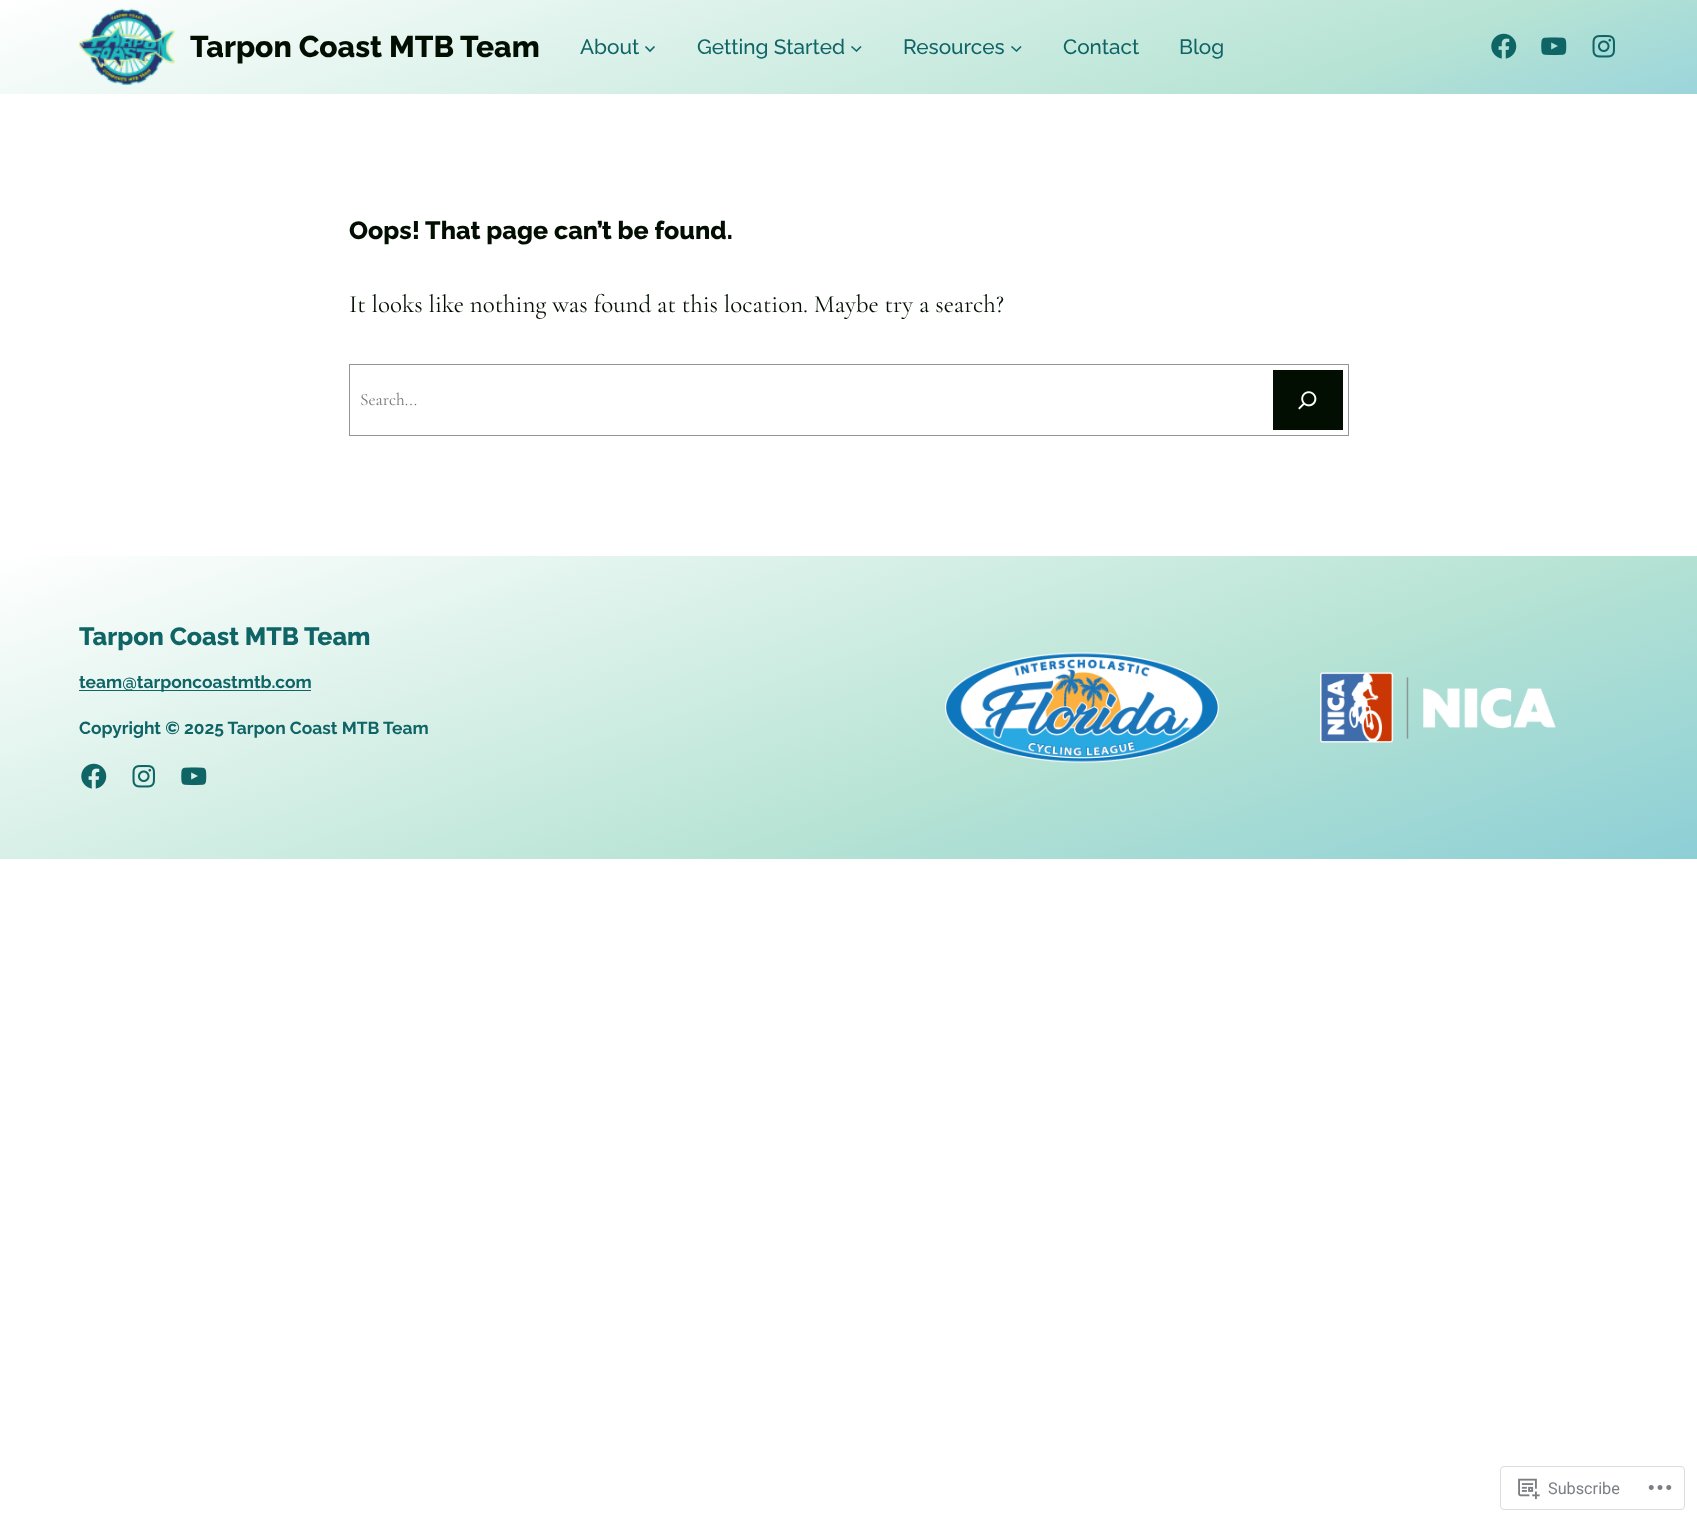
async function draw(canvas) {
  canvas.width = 1697
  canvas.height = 1522
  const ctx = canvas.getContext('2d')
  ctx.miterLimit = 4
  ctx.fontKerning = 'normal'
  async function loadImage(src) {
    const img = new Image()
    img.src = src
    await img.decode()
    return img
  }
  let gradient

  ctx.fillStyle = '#fff'
  ctx.fillRect(0, 0, 1697, 1522)
  gradient = ctx.createLinearGradient(744, -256, 953, 350)
  gradient.addColorStop(0, '#fff')
  gradient.addColorStop(0.79, '#b6e3d4')
  gradient.addColorStop(1, '#9bd5db')
  ctx.fillStyle = gradient
  ctx.fillRect(0, 0, 1697, 94)
  ctx.drawImage(await loadImage('image0.png'), 78, 8, 97, 77)
  ctx.font = '800 30px Raleway'
  ctx.fillStyle = '#020e01'
  ctx.fillText('Tarpon Coast MTB Team', 190, 57)
  ctx.font = '500 20.75px Raleway'
  ctx.fillStyle = '#0f6466'
  ctx.fillText('About', 580, 54)
  ctx.beginPath()
  ctx.moveTo(645.5, 46.5)
  ctx.lineTo(650, 51)
  ctx.lineTo(654.5, 46.5)
  ctx.strokeStyle = '#0f6466'
  ctx.lineWidth = 1.6
  ctx.stroke()
  ctx.fillText('Getting Started', 697, 54)
  ctx.beginPath()
  ctx.moveTo(851.5, 46.5)
  ctx.lineTo(856.5, 51)
  ctx.lineTo(861, 46.5)
  ctx.stroke()
  ctx.fillText('Resources', 903, 54)
  ctx.beginPath()
  ctx.moveTo(1011.5, 46.5)
  ctx.lineTo(1016.5, 51)
  ctx.lineTo(1021, 46.5)
  ctx.stroke()
  ctx.fillText('Contact', 1063, 54)
  ctx.fillText('Blog', 1179, 54)
  ctx.drawImage(await loadImage('image1.png'), 1491, 33, 26, 26)
  ctx.drawImage(await loadImage('image2.png'), 1541, 37, 26, 19)
  ctx.drawImage(await loadImage('image3.png'), 1592, 35, 23, 23)
  ctx.font = '800 25px Raleway'
  ctx.fillStyle = '#020e01'
  ctx.fillText('Oops! That page can’t be found.', 349, 239)
  ctx.font = '25px Cormorant Garamond'
  ctx.fillText('It looks like nothing was found at this location. Maybe try a search?', 349, 312)
  ctx.strokeStyle = '#949494'
  ctx.lineWidth = 1
  ctx.strokeRect(349.5, 364.5, 999, 71)
  ctx.font = '17.4px Cormorant Garamond'
  ctx.fillStyle = '#757575'
  ctx.fillText('Search...', 360, 405)
  ctx.fillStyle = '#020e01'
  ctx.fillRect(1273, 370, 70, 60)
  ctx.drawImage(await loadImage('image4.png'), 1298, 391, 19, 19)
  gradient = ctx.createLinearGradient(712, 311, 985, 1104)
  gradient.addColorStop(0, '#fff')
  gradient.addColorStop(0.63, '#b6e3d4')
  gradient.addColorStop(1, '#8dcfd6')
  ctx.fillStyle = gradient
  ctx.fillRect(0, 556, 1697, 303)
  ctx.font = '800 25px Raleway'
  ctx.fillStyle = '#0f6466'
  ctx.fillText('Tarpon Coast MTB Team', 79, 645)
  ctx.fillRect(79, 690, 232, 1)
  ctx.font = 'bold 17.4px Raleway'
  ctx.fillText('team@tarponcoastmtb.com', 79, 688)
  ctx.fillText('Copyright © 2025 Tarpon Coast MTB Team', 79, 734)
  ctx.drawImage(await loadImage('image5.png'), 81, 763, 26, 26)
  ctx.drawImage(await loadImage('image6.png'), 132, 765, 23, 23)
  ctx.drawImage(await loadImage('image7.png'), 181, 767, 26, 19)
  ctx.drawImage(await loadImage('image8.png'), 945, 652, 274, 111)
  ctx.drawImage(await loadImage('image9.png'), 1320, 672, 236, 71)
  ctx.beginPath()
  ctx.roundRect(1500.5, 1466.5, 184, 43, 3.5)
  ctx.strokeStyle = '#dddddf'
  ctx.stroke()
  ctx.drawImage(await loadImage('image10.png'), 1518, 1478, 22, 22)
  ctx.font = '16.25px Roboto'
  ctx.fillStyle = '#7b7f85'
  ctx.fillText('Subscribe', 1548, 1494)
  ctx.drawImage(await loadImage('image11.png'), 1648, 1485, 24, 5)
}

draw(document.querySelector('canvas'))
